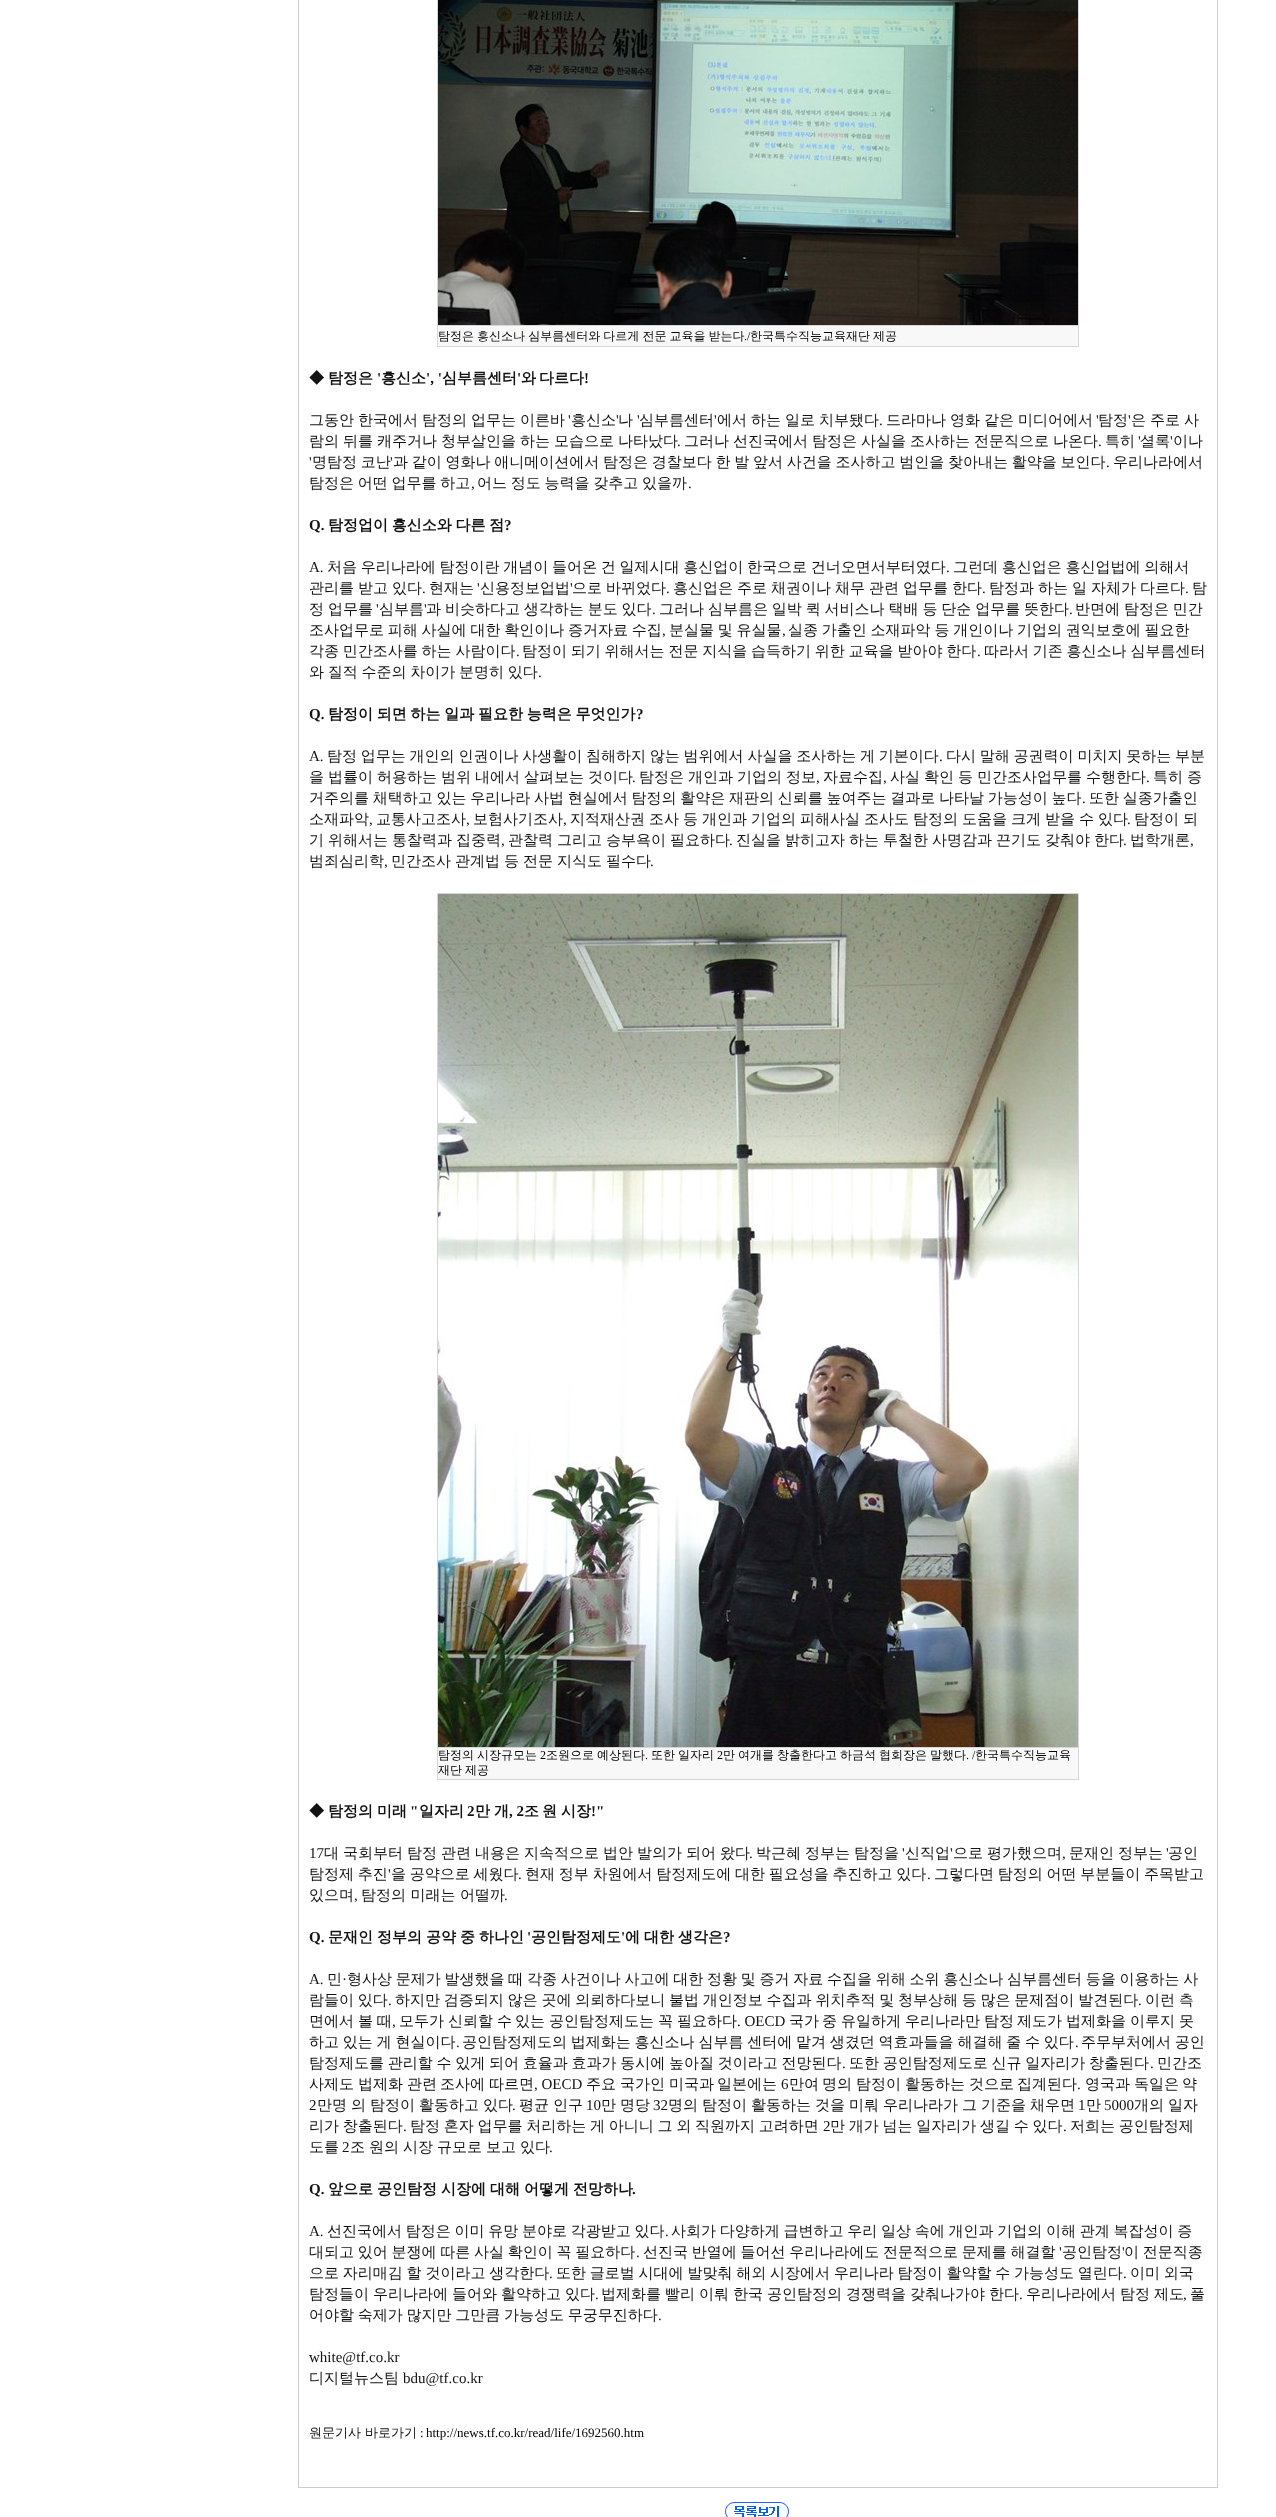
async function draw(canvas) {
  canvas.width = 1276
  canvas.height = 2517
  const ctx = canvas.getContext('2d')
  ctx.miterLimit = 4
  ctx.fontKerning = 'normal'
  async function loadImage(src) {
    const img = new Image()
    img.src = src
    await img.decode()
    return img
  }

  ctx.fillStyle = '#fff'
  ctx.fillRect(0, 0, 1276, 2517)
  ctx.fillStyle = '#ccc'
  ctx.fillRect(298, 0, 920, 2488)
  ctx.fillStyle = '#fff'
  ctx.fillRect(299, 0, 918, 2487)
  ctx.fillStyle = '#d7d7d7'
  ctx.fillRect(437, 0, 642, 347)
  ctx.drawImage(await loadImage('image0.png'), 438, 0, 640, 325)
  ctx.fillStyle = '#f8f8f8'
  ctx.fillRect(438, 326, 640, 20)
  ctx.wordSpacing = '-0.5px'
  ctx.font = '500 12px WenQuanYi Zen Hei'
  ctx.fillStyle = '#000'
  ctx.fillText('탐정은 흥신소나 심부름센터와 다르게 전문 교육을 받는다', 438, 340)
  ctx.wordSpacing = '0px'
  ctx.font = '12px Liberation Serif'
  ctx.fillText('./', 744, 340)
  ctx.wordSpacing = '-0.5px'
  ctx.font = '500 12px WenQuanYi Zen Hei'
  ctx.fillText('한국특수직능교육재단 제공', 750, 340)
  ctx.wordSpacing = '0px'
  ctx.font = 'bold 15px WenQuanYi Zen Hei'
  ctx.fillStyle = '#121212'
  ctx.fillText('◆', 309, 383)
  ctx.fillText('탐정은', 328, 383)
  ctx.font = 'bold 15px Liberation Serif'
  ctx.fillText('\'', 377, 383)
  ctx.font = 'bold 15px WenQuanYi Zen Hei'
  ctx.fillText('흥신소', 381, 383)
  ctx.font = 'bold 15px Liberation Serif'
  ctx.fillText('\', \'', 426, 383)
  ctx.font = 'bold 15px WenQuanYi Zen Hei'
  ctx.fillText('심부름센터', 442, 383)
  ctx.font = 'bold 15px Liberation Serif'
  ctx.fillText('\'', 517, 383)
  ctx.font = 'bold 15px WenQuanYi Zen Hei'
  ctx.fillText('와', 521, 383)
  ctx.fillText('다르다', 539, 383)
  ctx.font = 'bold 15px Liberation Serif'
  ctx.fillText('!', 584, 383)
  ctx.wordSpacing = '-0.5px'
  ctx.font = '500 15px WenQuanYi Zen Hei'
  ctx.fillText('그동안 한국에서 탐정의 업무는 이른바', 309, 425)
  ctx.wordSpacing = '0px'
  ctx.font = '15px Liberation Serif'
  ctx.fillText('\'', 568, 425)
  ctx.font = '500 15px WenQuanYi Zen Hei'
  ctx.fillText('흥신소', 571, 425)
  ctx.font = '15px Liberation Serif'
  ctx.fillText('\'', 616, 425)
  ctx.font = '500 15px WenQuanYi Zen Hei'
  ctx.fillText('나', 618, 425)
  ctx.font = '15px Liberation Serif'
  ctx.fillText('\'', 637, 425)
  ctx.font = '500 15px WenQuanYi Zen Hei'
  ctx.fillText('심부름센터', 639, 425)
  ctx.font = '15px Liberation Serif'
  ctx.fillText('\'', 714, 425)
  ctx.wordSpacing = '-0.5px'
  ctx.font = '500 15px WenQuanYi Zen Hei'
  ctx.fillText('에서 하는 일로 치부됐다', 717, 425)
  ctx.fillText('드라마나 영화 같은 미디어에서', 886, 425)
  ctx.wordSpacing = '0px'
  ctx.font = '15px Liberation Serif'
  ctx.fillText('\'', 1096, 425)
  ctx.font = '500 15px WenQuanYi Zen Hei'
  ctx.fillText('탐정', 1098, 425)
  ctx.font = '15px Liberation Serif'
  ctx.fillText('\'', 1128, 425)
  ctx.wordSpacing = '-0.5px'
  ctx.font = '500 15px WenQuanYi Zen Hei'
  ctx.fillText('은 주로 사', 1131, 425)
  ctx.wordSpacing = '0px'
  ctx.font = '15px Liberation Serif'
  ctx.fillText('.', 879, 425)
  ctx.wordSpacing = '-0.5px'
  ctx.font = '500 15px WenQuanYi Zen Hei'
  ctx.fillText('람의 뒤를 캐주거나 청부살인을 하는 모습으로 나타났다', 309, 446)
  ctx.fillText('그러나 선진국에서 탐정은 사실을 조사하는 전문직으로 나온다', 684, 446)
  ctx.wordSpacing = '0px'
  ctx.fillText('특히', 1105, 446)
  ctx.font = '15px Liberation Serif'
  ctx.fillText('\'', 1138, 446)
  ctx.font = '500 15px WenQuanYi Zen Hei'
  ctx.fillText('셜록', 1140, 446)
  ctx.font = '15px Liberation Serif'
  ctx.fillText('\'', 1170, 446)
  ctx.font = '500 15px WenQuanYi Zen Hei'
  ctx.fillText('이나', 1173, 446)
  ctx.font = '15px Liberation Serif'
  ctx.fillText('.', 677, 446)
  ctx.fillText('.', 1098, 446)
  ctx.fillText('\'', 309, 467)
  ctx.wordSpacing = '-0.75px'
  ctx.font = '500 15px WenQuanYi Zen Hei'
  ctx.fillText('명탐정 코난', 312, 467)
  ctx.wordSpacing = '0px'
  ctx.font = '15px Liberation Serif'
  ctx.fillText('\'', 390, 467)
  ctx.wordSpacing = '-0.75px'
  ctx.font = '500 15px WenQuanYi Zen Hei'
  ctx.fillText('과 같이 영화나 애니메이션에서 탐정은 경찰보다 한 발 앞서 사건을 조사하고 범인을 찾아내는 활약을 보인다', 393, 467)
  ctx.wordSpacing = '0px'
  ctx.fillText('우리나라에서', 1113, 467)
  ctx.font = '15px Liberation Serif'
  ctx.fillText('.', 1106, 467)
  ctx.wordSpacing = '-0.75px'
  ctx.font = '500 15px WenQuanYi Zen Hei'
  ctx.fillText('탐정은 어떤 업무를 하고', 309, 488)
  ctx.wordSpacing = '0px'
  ctx.font = '15px Liberation Serif'
  ctx.fillText(',', 471, 488)
  ctx.wordSpacing = '-0.75px'
  ctx.font = '500 15px WenQuanYi Zen Hei'
  ctx.fillText('어느 정도 능력을 갖추고 있을까', 477, 488)
  ctx.wordSpacing = '0px'
  ctx.font = '15px Liberation Serif'
  ctx.fillText('.', 688, 488)
  ctx.font = 'bold 15px Liberation Serif'
  ctx.fillText('Q.', 309, 530)
  ctx.wordSpacing = '-0.75px'
  ctx.font = 'bold 15px WenQuanYi Zen Hei'
  ctx.fillText('탐정업이 흥신소와 다른 점', 328, 530)
  ctx.wordSpacing = '0px'
  ctx.font = 'bold 15px Liberation Serif'
  ctx.fillText('?', 504, 530)
  ctx.font = '15px Liberation Serif'
  ctx.fillText('A.', 309, 572)
  ctx.wordSpacing = '-0.75px'
  ctx.font = '500 15px WenQuanYi Zen Hei'
  ctx.fillText('처음 우리나라에 탐정이란 개념이 들어온 건 일제시대 흥신업이 한국으로 건너오면서부터였다', 327, 572)
  ctx.wordSpacing = '0px'
  ctx.font = '15px Liberation Serif'
  ctx.fillText('.', 946, 572)
  ctx.wordSpacing = '-0.75px'
  ctx.font = '500 15px WenQuanYi Zen Hei'
  ctx.fillText('그런데 흥신업은 흥신업법에 의해서', 953, 572)
  ctx.wordSpacing = '-0.5px'
  ctx.fillText('관리를 받고 있다', 309, 593)
  ctx.wordSpacing = '0px'
  ctx.fillText('현재는', 429, 593)
  ctx.font = '15px Liberation Serif'
  ctx.fillText('\'', 477, 593)
  ctx.font = '500 15px WenQuanYi Zen Hei'
  ctx.fillText('신용정보업법', 480, 593)
  ctx.font = '15px Liberation Serif'
  ctx.fillText('\'', 570, 593)
  ctx.wordSpacing = '-0.5px'
  ctx.font = '500 15px WenQuanYi Zen Hei'
  ctx.fillText('으로 바뀌었다', 572, 593)
  ctx.fillText('흥신업은 주로 채권이나 채무 관련 업무를 한다', 673, 593)
  ctx.fillText('탐정과 하는 일 자체가 다르다', 989, 593)
  ctx.wordSpacing = '0px'
  ctx.fillText('탐', 1192, 593)
  ctx.font = '15px Liberation Serif'
  ctx.fillText('.', 422, 593)
  ctx.fillText('.', 666, 593)
  ctx.fillText('.', 982, 593)
  ctx.fillText('.', 1185, 593)
  ctx.wordSpacing = '-0.6px'
  ctx.font = '500 15px WenQuanYi Zen Hei'
  ctx.fillText('정 업무를', 309, 614)
  ctx.wordSpacing = '0px'
  ctx.font = '15px Liberation Serif'
  ctx.fillText('\'', 376, 614)
  ctx.font = '500 15px WenQuanYi Zen Hei'
  ctx.fillText('심부름', 379, 614)
  ctx.font = '15px Liberation Serif'
  ctx.fillText('\'', 424, 614)
  ctx.wordSpacing = '-0.6px'
  ctx.font = '500 15px WenQuanYi Zen Hei'
  ctx.fillText('과 비슷하다고 생각하는 분도 있다', 426, 614)
  ctx.fillText('그러나 심부름은 일박 퀵 서비스나 택배 등 단순 업무를 뜻한다', 659, 614)
  ctx.fillText('반면에 탐정은 민간', 1075, 614)
  ctx.wordSpacing = '0px'
  ctx.font = '15px Liberation Serif'
  ctx.fillText('.', 652, 614)
  ctx.fillText('.', 1069, 614)
  ctx.wordSpacing = '-0.7px'
  ctx.font = '500 15px WenQuanYi Zen Hei'
  ctx.fillText('조사업무로 피해 사실에 대한 확인이나 증거자료 수집', 309, 635)
  ctx.wordSpacing = '0px'
  ctx.font = '15px Liberation Serif'
  ctx.fillText(',', 662, 635)
  ctx.wordSpacing = '-0.7px'
  ctx.font = '500 15px WenQuanYi Zen Hei'
  ctx.fillText('분실물 및 유실물', 669, 635)
  ctx.wordSpacing = '0px'
  ctx.font = '15px Liberation Serif'
  ctx.fillText(',', 782, 635)
  ctx.wordSpacing = '-0.7px'
  ctx.font = '500 15px WenQuanYi Zen Hei'
  ctx.fillText('실종 가출인 소재파악 등 개인이나 기업의 권익보호에 필요한', 788, 635)
  ctx.fillText('각종 민간조사를 하는 사람이다', 309, 656)
  ctx.wordSpacing = '0px'
  ctx.font = '15px Liberation Serif'
  ctx.fillText('.', 516, 656)
  ctx.wordSpacing = '-0.7px'
  ctx.font = '500 15px WenQuanYi Zen Hei'
  ctx.fillText('탐정이 되기 위해서는 전문 지식을 습득하기 위한 교육을 받아야 한다', 522, 656)
  ctx.wordSpacing = '0px'
  ctx.font = '15px Liberation Serif'
  ctx.fillText('.', 977, 656)
  ctx.wordSpacing = '-0.7px'
  ctx.font = '500 15px WenQuanYi Zen Hei'
  ctx.fillText('따라서 기존 흥신소나 심부름센터', 984, 656)
  ctx.wordSpacing = '-0.75px'
  ctx.fillText('와 질적 수준의 차이가 분명히 있다', 309, 677)
  ctx.wordSpacing = '0px'
  ctx.font = '15px Liberation Serif'
  ctx.fillText('.', 538, 677)
  ctx.font = 'bold 15px Liberation Serif'
  ctx.fillText('Q.', 309, 719)
  ctx.wordSpacing = '-0.75px'
  ctx.font = 'bold 15px WenQuanYi Zen Hei'
  ctx.fillText('탐정이 되면 하는 일과 필요한 능력은 무엇인가', 328, 719)
  ctx.wordSpacing = '0px'
  ctx.font = 'bold 15px Liberation Serif'
  ctx.fillText('?', 636, 719)
  ctx.font = '15px Liberation Serif'
  ctx.fillText('A.', 309, 761)
  ctx.wordSpacing = '-0.7px'
  ctx.font = '500 15px WenQuanYi Zen Hei'
  ctx.fillText('탐정 업무는 개인의 인권이나 사생활이 침해하지 않는 범위에서 사실을 조사하는 게 기본이다', 327, 761)
  ctx.wordSpacing = '0px'
  ctx.font = '15px Liberation Serif'
  ctx.fillText('.', 939, 761)
  ctx.wordSpacing = '-0.7px'
  ctx.font = '500 15px WenQuanYi Zen Hei'
  ctx.fillText('다시 말해 공권력이 미치지 못하는 부분', 946, 761)
  ctx.wordSpacing = '-0.5px'
  ctx.fillText('을 법률이 허용하는 범위 내에서 살펴보는 것이다', 309, 782)
  ctx.wordSpacing = '0px'
  ctx.font = '15px Liberation Serif'
  ctx.fillText('.', 632, 782)
  ctx.wordSpacing = '-0.5px'
  ctx.font = '500 15px WenQuanYi Zen Hei'
  ctx.fillText('탐정은 개인과 기업의 정보', 639, 782)
  ctx.wordSpacing = '0px'
  ctx.font = '15px Liberation Serif'
  ctx.fillText(',', 816, 782)
  ctx.font = '500 15px WenQuanYi Zen Hei'
  ctx.fillText('자료수집', 823, 782)
  ctx.font = '15px Liberation Serif'
  ctx.fillText(',', 883, 782)
  ctx.wordSpacing = '-0.5px'
  ctx.font = '500 15px WenQuanYi Zen Hei'
  ctx.fillText('사실 확인 등 민간조사업무를 수행한다', 890, 782)
  ctx.wordSpacing = '0px'
  ctx.font = '15px Liberation Serif'
  ctx.fillText('.', 1146, 782)
  ctx.wordSpacing = '-0.5px'
  ctx.font = '500 15px WenQuanYi Zen Hei'
  ctx.fillText('특히 증', 1153, 782)
  ctx.wordSpacing = '-0.75px'
  ctx.fillText('거주의를 채택하고 있는 우리나라 사법 현실에서 탐정의 활약은 재판의 신뢰를 높여주는 결과로 나타날 가능성이 높다', 309, 803)
  ctx.wordSpacing = '0px'
  ctx.font = '15px Liberation Serif'
  ctx.fillText('.', 1082, 803)
  ctx.wordSpacing = '-0.75px'
  ctx.font = '500 15px WenQuanYi Zen Hei'
  ctx.fillText('또한 실종가출인', 1089, 803)
  ctx.wordSpacing = '0px'
  ctx.fillText('소재파악', 309, 824)
  ctx.font = '15px Liberation Serif'
  ctx.fillText(',', 369, 824)
  ctx.font = '500 15px WenQuanYi Zen Hei'
  ctx.fillText('교통사고조사', 376, 824)
  ctx.font = '15px Liberation Serif'
  ctx.fillText(',', 466, 824)
  ctx.font = '500 15px WenQuanYi Zen Hei'
  ctx.fillText('보험사기조사', 473, 824)
  ctx.font = '15px Liberation Serif'
  ctx.fillText(',', 563, 824)
  ctx.wordSpacing = '-0.5px'
  ctx.font = '500 15px WenQuanYi Zen Hei'
  ctx.fillText('지적재산권 조사 등 개인과 기업의 피해사실 조사도 탐정의 도움을 크게 받을 수 있다', 570, 824)
  ctx.wordSpacing = '0px'
  ctx.font = '15px Liberation Serif'
  ctx.fillText('.', 1127, 824)
  ctx.wordSpacing = '-0.5px'
  ctx.font = '500 15px WenQuanYi Zen Hei'
  ctx.fillText('탐정이 되', 1134, 824)
  ctx.fillText('기 위해서는 통찰력과 집중력', 309, 845)
  ctx.wordSpacing = '0px'
  ctx.font = '15px Liberation Serif'
  ctx.fillText(',', 501, 845)
  ctx.wordSpacing = '-0.5px'
  ctx.font = '500 15px WenQuanYi Zen Hei'
  ctx.fillText('관찰력 그리고 승부욕이 필요하다', 508, 845)
  ctx.wordSpacing = '0px'
  ctx.font = '15px Liberation Serif'
  ctx.fillText('.', 729, 845)
  ctx.wordSpacing = '-0.5px'
  ctx.font = '500 15px WenQuanYi Zen Hei'
  ctx.fillText('진실을 밝히고자 하는 투철한 사명감과 끈기도 갖춰야 한다', 736, 845)
  ctx.wordSpacing = '0px'
  ctx.font = '15px Liberation Serif'
  ctx.fillText('.', 1123, 845)
  ctx.font = '500 15px WenQuanYi Zen Hei'
  ctx.fillText('법학개론', 1130, 845)
  ctx.font = '15px Liberation Serif'
  ctx.fillText(',', 1190, 845)
  ctx.font = '500 15px WenQuanYi Zen Hei'
  ctx.fillText('범죄심리학', 309, 866)
  ctx.font = '15px Liberation Serif'
  ctx.fillText(',', 384, 866)
  ctx.wordSpacing = '-0.5px'
  ctx.font = '500 15px WenQuanYi Zen Hei'
  ctx.fillText('민간조사 관계법 등 전문 지식도 필수다', 391, 866)
  ctx.wordSpacing = '0px'
  ctx.font = '15px Liberation Serif'
  ctx.fillText('.', 650, 866)
  ctx.fillStyle = '#d7d7d7'
  ctx.fillRect(437, 893, 642, 887)
  ctx.drawImage(await loadImage('image1.png'), 438, 894, 640, 853)
  ctx.fillStyle = '#f8f8f8'
  ctx.fillRect(438, 1748, 640, 31)
  ctx.font = '500 12px WenQuanYi Zen Hei'
  ctx.fillStyle = '#000'
  ctx.fillText('탐정의', 438, 1759)
  ctx.fillText('시장규모는', 477, 1759)
  ctx.font = '12px Liberation Serif'
  ctx.fillText('2', 540, 1759)
  ctx.font = '500 12px WenQuanYi Zen Hei'
  ctx.fillText('조원으로', 546, 1759)
  ctx.fillText('예상된다', 597, 1759)
  ctx.font = '12px Liberation Serif'
  ctx.fillText('.', 645, 1759)
  ctx.font = '500 12px WenQuanYi Zen Hei'
  ctx.fillText('또한', 651, 1759)
  ctx.fillText('일자리', 678, 1759)
  ctx.font = '12px Liberation Serif'
  ctx.fillText('2', 717, 1759)
  ctx.font = '500 12px WenQuanYi Zen Hei'
  ctx.fillText('만', 723, 1759)
  ctx.fillText('여개를', 738, 1759)
  ctx.fillText('창출한다고', 777, 1759)
  ctx.fillText('하금석', 840, 1759)
  ctx.fillText('협회장은', 879, 1759)
  ctx.fillText('말했다', 930, 1759)
  ctx.font = '12px Liberation Serif'
  ctx.fillText('. /', 966, 1759)
  ctx.font = '500 12px WenQuanYi Zen Hei'
  ctx.fillText('한국특수직능교육', 975, 1759)
  ctx.wordSpacing = '-0.5px'
  ctx.fillText('재단 제공', 438, 1774)
  ctx.wordSpacing = '0px'
  ctx.font = 'bold 15px WenQuanYi Zen Hei'
  ctx.fillStyle = '#121212'
  ctx.fillText('◆', 309, 1816)
  ctx.fillText('탐정의', 328, 1816)
  ctx.fillText('미래', 377, 1816)
  ctx.font = 'bold 15px Liberation Serif'
  ctx.fillText('"', 410, 1816)
  ctx.font = 'bold 15px WenQuanYi Zen Hei'
  ctx.fillText('일자리', 419, 1816)
  ctx.font = 'bold 15px Liberation Serif'
  ctx.fillText('2', 467, 1816)
  ctx.font = 'bold 15px WenQuanYi Zen Hei'
  ctx.fillText('만', 475, 1816)
  ctx.fillText('개', 494, 1816)
  ctx.font = 'bold 15px Liberation Serif'
  ctx.fillText(', 2', 509, 1816)
  ctx.font = 'bold 15px WenQuanYi Zen Hei'
  ctx.fillText('조', 524, 1816)
  ctx.fillText('원', 542, 1816)
  ctx.fillText('시장', 561, 1816)
  ctx.font = 'bold 15px Liberation Serif'
  ctx.fillText('!"', 591, 1816)
  ctx.font = '15px Liberation Serif'
  ctx.fillText('17', 309, 1858)
  ctx.wordSpacing = '-0.5px'
  ctx.font = '500 15px WenQuanYi Zen Hei'
  ctx.fillText('대 국회부터 탐정 관련 내용은 지속적으로 법안 발의가 되어 왔다', 324, 1858)
  ctx.fillText('박근혜 정부는 탐정을', 756, 1858)
  ctx.wordSpacing = '0px'
  ctx.font = '15px Liberation Serif'
  ctx.fillText('\'', 902, 1858)
  ctx.font = '500 15px WenQuanYi Zen Hei'
  ctx.fillText('신직업', 905, 1858)
  ctx.font = '15px Liberation Serif'
  ctx.fillText('\'', 950, 1858)
  ctx.wordSpacing = '-0.5px'
  ctx.font = '500 15px WenQuanYi Zen Hei'
  ctx.fillText('으로 평가했으며', 953, 1858)
  ctx.fillText('문재인 정부는', 1069, 1858)
  ctx.wordSpacing = '0px'
  ctx.font = '15px Liberation Serif'
  ctx.fillText('\'', 1166, 1858)
  ctx.font = '500 15px WenQuanYi Zen Hei'
  ctx.fillText('공인', 1168, 1858)
  ctx.font = '15px Liberation Serif'
  ctx.fillText('.', 749, 1858)
  ctx.fillText(',', 1062, 1858)
  ctx.wordSpacing = '-0.75px'
  ctx.font = '500 15px WenQuanYi Zen Hei'
  ctx.fillText('탐정제 추진', 309, 1879)
  ctx.wordSpacing = '0px'
  ctx.font = '15px Liberation Serif'
  ctx.fillText('\'', 388, 1879)
  ctx.wordSpacing = '-0.75px'
  ctx.font = '500 15px WenQuanYi Zen Hei'
  ctx.fillText('을 공약으로 세웠다', 391, 1879)
  ctx.fillText('현재 정부 차원에서 탐정제도에 대한 필요성을 추진하고 있다', 525, 1879)
  ctx.fillText('그렇다면 탐정의 어떤 부분들이 주목받고', 934, 1879)
  ctx.wordSpacing = '0px'
  ctx.font = '15px Liberation Serif'
  ctx.fillText('.', 518, 1879)
  ctx.fillText('.', 927, 1879)
  ctx.font = '500 15px WenQuanYi Zen Hei'
  ctx.fillText('있으며', 309, 1900)
  ctx.font = '15px Liberation Serif'
  ctx.fillText(',', 354, 1900)
  ctx.font = '500 15px WenQuanYi Zen Hei'
  ctx.fillText('탐정의 미래는 어떨까', 361, 1900)
  ctx.font = '15px Liberation Serif'
  ctx.fillText('.', 504, 1900)
  ctx.font = 'bold 15px Liberation Serif'
  ctx.fillText('Q.', 309, 1942)
  ctx.wordSpacing = '-0.5px'
  ctx.font = 'bold 15px WenQuanYi Zen Hei'
  ctx.fillText('문재인 정부의 공약 중 하나인', 328, 1942)
  ctx.wordSpacing = '0px'
  ctx.font = 'bold 15px Liberation Serif'
  ctx.fillText('\'', 527, 1942)
  ctx.font = 'bold 15px WenQuanYi Zen Hei'
  ctx.fillText('공인탐정제도', 531, 1942)
  ctx.font = 'bold 15px Liberation Serif'
  ctx.fillText('\'', 621, 1942)
  ctx.wordSpacing = '-0.5px'
  ctx.font = 'bold 15px WenQuanYi Zen Hei'
  ctx.fillText('에 대한 생각은', 625, 1942)
  ctx.wordSpacing = '0px'
  ctx.font = 'bold 15px Liberation Serif'
  ctx.fillText('?', 723, 1942)
  ctx.font = '15px Liberation Serif'
  ctx.fillText('A.', 309, 1984)
  ctx.font = '500 15px WenQuanYi Zen Hei'
  ctx.fillText('민', 327, 1984)
  ctx.font = '15px Liberation Serif'
  ctx.fillText('·', 342, 1984)
  ctx.wordSpacing = '-0.75px'
  ctx.font = '500 15px WenQuanYi Zen Hei'
  ctx.fillText('형사상 문제가 발생했을 때 각종 사건이나 사고에 대한 정황 및 증거 자료 수집을 위해 소위 흥신소나 심부름센터 등을 이용하는 사', 347, 1984)
  ctx.wordSpacing = '-0.7px'
  ctx.fillText('람들이 있다', 309, 2005)
  ctx.wordSpacing = '0px'
  ctx.font = '15px Liberation Serif'
  ctx.fillText('.', 388, 2005)
  ctx.wordSpacing = '-0.7px'
  ctx.font = '500 15px WenQuanYi Zen Hei'
  ctx.fillText('하지만 검증되지 않은 곳에 의뢰하다보니 불법 개인정보 수집과 위치추적 및 청부상해 등 많은 문제점이 발견된다', 395, 2005)
  ctx.wordSpacing = '0px'
  ctx.font = '15px Liberation Serif'
  ctx.fillText('.', 1138, 2005)
  ctx.wordSpacing = '-0.7px'
  ctx.font = '500 15px WenQuanYi Zen Hei'
  ctx.fillText('이런 측', 1145, 2005)
  ctx.wordSpacing = '0px'
  ctx.fillText('면에서', 309, 2026)
  ctx.fillText('볼', 358, 2026)
  ctx.fillText('때', 377, 2026)
  ctx.font = '15px Liberation Serif'
  ctx.fillText(',', 392, 2026)
  ctx.font = '500 15px WenQuanYi Zen Hei'
  ctx.fillText('모두가', 399, 2026)
  ctx.fillText('신뢰할', 448, 2026)
  ctx.fillText('수', 497, 2026)
  ctx.fillText('있는', 515, 2026)
  ctx.fillText('공인탐정제도는', 549, 2026)
  ctx.fillText('꼭', 658, 2026)
  ctx.fillText('필요하다', 677, 2026)
  ctx.font = '15px Liberation Serif'
  ctx.fillText('. OECD', 737, 2026)
  ctx.font = '500 15px WenQuanYi Zen Hei'
  ctx.fillText('국가', 789, 2026)
  ctx.fillText('중', 822, 2026)
  ctx.fillText('유일하게', 841, 2026)
  ctx.fillText('우리나라만', 905, 2026)
  ctx.fillText('탐정', 984, 2026)
  ctx.fillText('제도가', 1017, 2026)
  ctx.fillText('법제화을', 1066, 2026)
  ctx.fillText('이루지', 1130, 2026)
  ctx.fillText('못', 1179, 2026)
  ctx.wordSpacing = '-0.7px'
  ctx.fillText('하고 있는 게 현실이다', 309, 2047)
  ctx.wordSpacing = '0px'
  ctx.font = '15px Liberation Serif'
  ctx.fillText('.', 456, 2047)
  ctx.wordSpacing = '-0.7px'
  ctx.font = '500 15px WenQuanYi Zen Hei'
  ctx.fillText('공인탐정제도의 법제화는 흥신소나 심부름 센터에 맡겨 생겼던 역효과들을 해결해 줄 수 있다', 462, 2047)
  ctx.wordSpacing = '0px'
  ctx.font = '15px Liberation Serif'
  ctx.fillText('.', 1075, 2047)
  ctx.wordSpacing = '-0.7px'
  ctx.font = '500 15px WenQuanYi Zen Hei'
  ctx.fillText('주무부처에서 공인', 1081, 2047)
  ctx.wordSpacing = '-0.75px'
  ctx.fillText('탐정제도를 관리할 수 있게 되어 효율과 효과가 동시에 높아질 것이라고 전망된다', 309, 2068)
  ctx.wordSpacing = '0px'
  ctx.font = '15px Liberation Serif'
  ctx.fillText('.', 842, 2068)
  ctx.wordSpacing = '-0.75px'
  ctx.font = '500 15px WenQuanYi Zen Hei'
  ctx.fillText('또한 공인탐정제도로 신규 일자리가 창출된다', 849, 2068)
  ctx.wordSpacing = '0px'
  ctx.font = '15px Liberation Serif'
  ctx.fillText('.', 1150, 2068)
  ctx.font = '500 15px WenQuanYi Zen Hei'
  ctx.fillText('민간조', 1157, 2068)
  ctx.fillText('사제도', 309, 2089)
  ctx.fillText('법제화', 358, 2089)
  ctx.fillText('관련', 407, 2089)
  ctx.fillText('조사에', 440, 2089)
  ctx.fillText('따르면', 489, 2089)
  ctx.font = '15px Liberation Serif'
  ctx.fillText(', OECD', 534, 2089)
  ctx.font = '500 15px WenQuanYi Zen Hei'
  ctx.fillText('주요', 586, 2089)
  ctx.fillText('국가인', 620, 2089)
  ctx.fillText('미국과', 669, 2089)
  ctx.fillText('일본에는', 717, 2089)
  ctx.font = '15px Liberation Serif'
  ctx.fillText('6', 781, 2089)
  ctx.font = '500 15px WenQuanYi Zen Hei'
  ctx.fillText('만여', 789, 2089)
  ctx.fillText('명의', 822, 2089)
  ctx.fillText('탐정이', 856, 2089)
  ctx.fillText('활동하는', 905, 2089)
  ctx.fillText('것으로', 969, 2089)
  ctx.fillText('집계된다', 1017, 2089)
  ctx.font = '15px Liberation Serif'
  ctx.fillText('.', 1077, 2089)
  ctx.font = '500 15px WenQuanYi Zen Hei'
  ctx.fillText('영국과', 1085, 2089)
  ctx.fillText('독일은', 1134, 2089)
  ctx.fillText('약', 1182, 2089)
  ctx.font = '15px Liberation Serif'
  ctx.fillText('2', 309, 2110)
  ctx.wordSpacing = '-0.5px'
  ctx.font = '500 15px WenQuanYi Zen Hei'
  ctx.fillText('만명 의 탐정이 활동하고 있다', 317, 2110)
  ctx.wordSpacing = '0px'
  ctx.font = '15px Liberation Serif'
  ctx.fillText('.', 512, 2110)
  ctx.wordSpacing = '-0.5px'
  ctx.font = '500 15px WenQuanYi Zen Hei'
  ctx.fillText('평균 인구', 519, 2110)
  ctx.wordSpacing = '0px'
  ctx.font = '15px Liberation Serif'
  ctx.fillText('10', 586, 2110)
  ctx.wordSpacing = '-0.5px'
  ctx.font = '500 15px WenQuanYi Zen Hei'
  ctx.fillText('만 명당', 601, 2110)
  ctx.wordSpacing = '0px'
  ctx.font = '15px Liberation Serif'
  ctx.fillText('32', 653, 2110)
  ctx.wordSpacing = '-0.5px'
  ctx.font = '500 15px WenQuanYi Zen Hei'
  ctx.fillText('명의 탐정이 활동하는 것을 미뤄 우리나라가 그 기준을 채우면', 668, 2110)
  ctx.wordSpacing = '0px'
  ctx.font = '15px Liberation Serif'
  ctx.fillText('1', 1078, 2110)
  ctx.font = '500 15px WenQuanYi Zen Hei'
  ctx.fillText('만', 1086, 2110)
  ctx.font = '15px Liberation Serif'
  ctx.fillText('5000', 1104, 2110)
  ctx.wordSpacing = '-0.5px'
  ctx.font = '500 15px WenQuanYi Zen Hei'
  ctx.fillText('개의 일자', 1134, 2110)
  ctx.wordSpacing = '-0.75px'
  ctx.fillText('리가 창출된다', 309, 2131)
  ctx.wordSpacing = '0px'
  ctx.font = '15px Liberation Serif'
  ctx.fillText('.', 403, 2131)
  ctx.wordSpacing = '-0.75px'
  ctx.font = '500 15px WenQuanYi Zen Hei'
  ctx.fillText('탐정 혼자 업무를 처리하는 게 아니니 그 외 직원까지 고려하면', 410, 2131)
  ctx.wordSpacing = '0px'
  ctx.font = '15px Liberation Serif'
  ctx.fillText('2', 823, 2131)
  ctx.wordSpacing = '-0.75px'
  ctx.font = '500 15px WenQuanYi Zen Hei'
  ctx.fillText('만 개가 넘는 일자리가 생길 수 있다', 830, 2131)
  ctx.wordSpacing = '0px'
  ctx.font = '15px Liberation Serif'
  ctx.fillText('.', 1063, 2131)
  ctx.wordSpacing = '-0.75px'
  ctx.font = '500 15px WenQuanYi Zen Hei'
  ctx.fillText('저희는 공인탐정제', 1070, 2131)
  ctx.wordSpacing = '0px'
  ctx.fillText('도를', 309, 2152)
  ctx.font = '15px Liberation Serif'
  ctx.fillText('2', 342, 2152)
  ctx.wordSpacing = '-0.5px'
  ctx.font = '500 15px WenQuanYi Zen Hei'
  ctx.fillText('조 원의 시장 규모로 보고 있다', 350, 2152)
  ctx.wordSpacing = '0px'
  ctx.font = '15px Liberation Serif'
  ctx.fillText('.', 549, 2152)
  ctx.font = 'bold 15px Liberation Serif'
  ctx.fillText('Q.', 309, 2194)
  ctx.wordSpacing = '-0.5px'
  ctx.font = 'bold 15px WenQuanYi Zen Hei'
  ctx.fillText('앞으로 공인탐정 시장에 대해 어떻게 전망하나', 328, 2194)
  ctx.wordSpacing = '0px'
  ctx.font = 'bold 15px Liberation Serif'
  ctx.fillText('.', 632, 2194)
  ctx.font = '15px Liberation Serif'
  ctx.fillText('A.', 309, 2236)
  ctx.wordSpacing = '-0.75px'
  ctx.font = '500 15px WenQuanYi Zen Hei'
  ctx.fillText('선진국에서 탐정은 이미 유망 분야로 각광받고 있다', 327, 2236)
  ctx.wordSpacing = '0px'
  ctx.font = '15px Liberation Serif'
  ctx.fillText('.', 665, 2236)
  ctx.wordSpacing = '-0.75px'
  ctx.font = '500 15px WenQuanYi Zen Hei'
  ctx.fillText('사회가 다양하게 급변하고 우리 일상 속에 개인과 기업의 이해 관계 복잡성이 증', 671, 2236)
  ctx.fillText('대되고 있어 분쟁에 따른 사실 확인이 꼭 필요하다', 309, 2257)
  ctx.fillText('선진국 반열에 들어선 우리나라에도 전문적으로 문제를 해결할', 643, 2257)
  ctx.wordSpacing = '0px'
  ctx.font = '15px Liberation Serif'
  ctx.fillText('\'', 1059, 2257)
  ctx.font = '500 15px WenQuanYi Zen Hei'
  ctx.fillText('공인탐정', 1062, 2257)
  ctx.font = '15px Liberation Serif'
  ctx.fillText('\'', 1122, 2257)
  ctx.wordSpacing = '-0.75px'
  ctx.font = '500 15px WenQuanYi Zen Hei'
  ctx.fillText('이 전문직종', 1124, 2257)
  ctx.wordSpacing = '0px'
  ctx.font = '15px Liberation Serif'
  ctx.fillText('.', 636, 2257)
  ctx.wordSpacing = '-0.7px'
  ctx.font = '500 15px WenQuanYi Zen Hei'
  ctx.fillText('으로 자리매김 할 것이라고 생각한다', 309, 2278)
  ctx.wordSpacing = '0px'
  ctx.font = '15px Liberation Serif'
  ctx.fillText('.', 549, 2278)
  ctx.wordSpacing = '-0.7px'
  ctx.font = '500 15px WenQuanYi Zen Hei'
  ctx.fillText('또한 글로벌 시대에 발맞춰 해외 시장에서 우리나라 탐정이 활약할 수 가능성도 열린다', 556, 2278)
  ctx.wordSpacing = '0px'
  ctx.font = '15px Liberation Serif'
  ctx.fillText('.', 1123, 2278)
  ctx.wordSpacing = '-0.7px'
  ctx.font = '500 15px WenQuanYi Zen Hei'
  ctx.fillText('이미 외국', 1130, 2278)
  ctx.wordSpacing = '-0.5px'
  ctx.fillText('탐정들이 우리나라에 들어와 활약하고 있다', 309, 2299)
  ctx.wordSpacing = '0px'
  ctx.font = '15px Liberation Serif'
  ctx.fillText('.', 595, 2299)
  ctx.wordSpacing = '-0.5px'
  ctx.font = '500 15px WenQuanYi Zen Hei'
  ctx.fillText('법제화를 빨리 이뤄 한국 공인탐정의 경쟁력을 갖춰나가야 한다', 601, 2299)
  ctx.wordSpacing = '0px'
  ctx.font = '15px Liberation Serif'
  ctx.fillText('.', 1019, 2299)
  ctx.wordSpacing = '-0.5px'
  ctx.font = '500 15px WenQuanYi Zen Hei'
  ctx.fillText('우리나라에서 탐정 제도', 1026, 2299)
  ctx.wordSpacing = '0px'
  ctx.font = '15px Liberation Serif'
  ctx.fillText(',', 1183, 2299)
  ctx.font = '500 15px WenQuanYi Zen Hei'
  ctx.fillText('풀', 1190, 2299)
  ctx.wordSpacing = '-0.75px'
  ctx.fillText('어야할 숙제가 많지만 그만큼 가능성도 무궁무진하다', 309, 2320)
  ctx.wordSpacing = '0px'
  ctx.font = '15px Liberation Serif'
  ctx.fillText('.', 658, 2320)
  ctx.fillText('white@tf.co.kr', 309, 2362)
  ctx.font = '500 15px WenQuanYi Zen Hei'
  ctx.fillText('디지털뉴스팀', 309, 2383)
  ctx.font = '15px Liberation Serif'
  ctx.fillText('bdu@tf.co.kr', 403, 2383)
  ctx.font = '500 13px WenQuanYi Zen Hei'
  ctx.fillText('원문기사 바로가기', 309, 2437)
  ctx.font = '13px Liberation Serif'
  ctx.fillText(':', 420, 2437)
  ctx.fillStyle = '#000'
  ctx.fillText('http://news.tf.co.kr/read/life/1692560.htm', 426, 2437)
  ctx.drawImage(await loadImage('image2.png'), 724, 2502, 65, 15)
}

draw(document.querySelector('canvas'))
